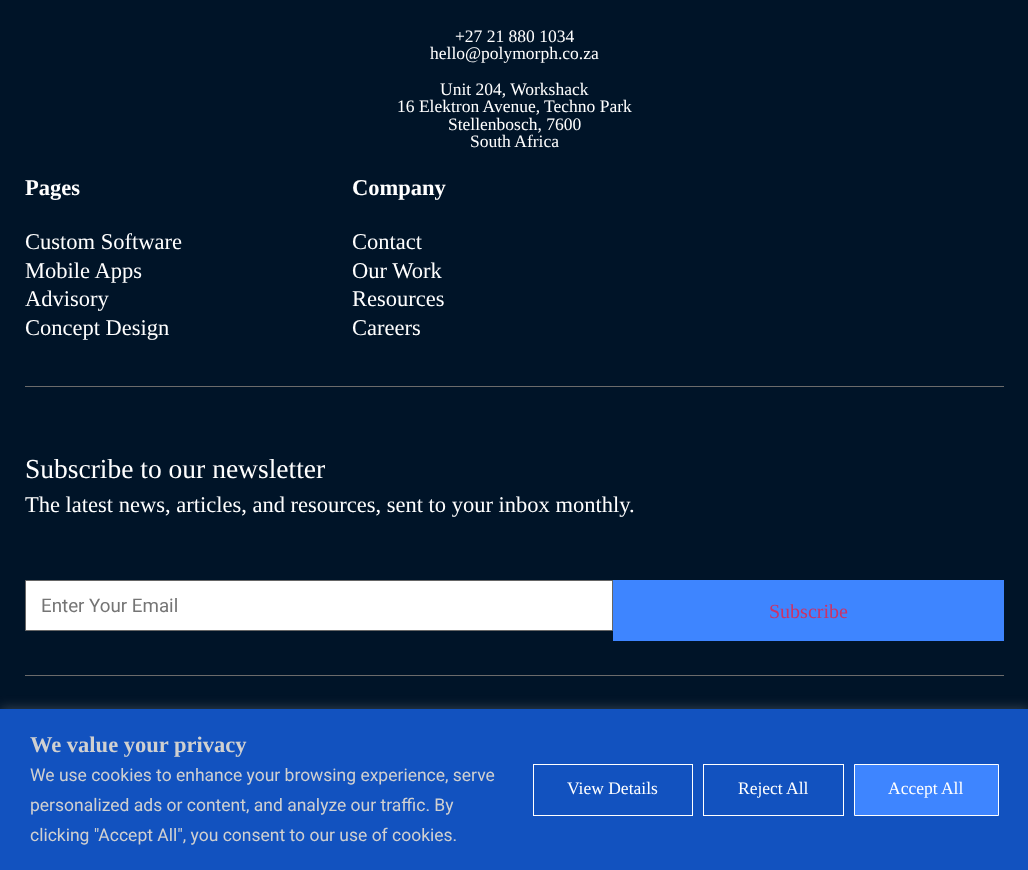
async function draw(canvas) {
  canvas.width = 1028
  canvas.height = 870
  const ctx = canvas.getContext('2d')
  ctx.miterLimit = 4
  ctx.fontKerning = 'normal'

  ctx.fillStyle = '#001428'
  ctx.fillRect(0, 0, 1028, 870)
  ctx.font = '17.5px Liberation Serif'
  ctx.fillStyle = '#fff'
  ctx.fillText('+27 21 880 1034', 455, 42)
  ctx.fillText('hello@polymorph.co.za', 430, 59)
  ctx.fillText('Unit 204, Workshack', 440, 95)
  ctx.fillText('16 Elektron Avenue, Techno Park', 397, 112)
  ctx.fillText('Stellenbosch, 7600', 448, 130)
  ctx.fillText('South Africa', 470, 147)
  ctx.font = 'bold 22.5px Liberation Serif'
  ctx.fillText('Pages', 25, 195)
  ctx.font = '22.5px Liberation Serif'
  ctx.fillText('Custom Software', 25, 249)
  ctx.fillText('Mobile Apps', 25, 278)
  ctx.fillText('Advisory', 25, 306)
  ctx.fillText('Concept Design', 25, 335)
  ctx.font = 'bold 22.5px Liberation Serif'
  ctx.fillText('Company', 352, 195)
  ctx.font = '22.5px Liberation Serif'
  ctx.fillText('Contact', 352, 249)
  ctx.fillText('Our Work', 352, 278)
  ctx.fillText('Resources', 352, 306)
  ctx.fillText('Careers', 352, 335)
  ctx.fillStyle = '#6b6b6b'
  ctx.fillRect(25, 386, 979, 1)
  ctx.font = '27.5px Liberation Serif'
  ctx.fillStyle = '#fff'
  ctx.fillText('Subscribe to our newsletter', 25, 478)
  ctx.font = '22.5px Liberation Serif'
  ctx.fillText('The latest news, articles, and resources, sent to your inbox monthly.', 25, 512)
  ctx.beginPath()
  ctx.rect(25.5, 580.5, 587, 50)
  ctx.fill()
  ctx.strokeStyle = '#666'
  ctx.stroke()
  ctx.font = '18.75px Roboto'
  ctx.fillStyle = '#757575'
  ctx.fillText('Enter Your Email', 41, 612)
  ctx.fillStyle = '#3e85ff'
  ctx.fillRect(613, 580, 391, 61)
  ctx.font = '20px Liberation Serif'
  ctx.fillStyle = '#c36'
  ctx.fillText('Subscribe', 769, 618)
  ctx.fillStyle = '#6b6b6b'
  ctx.fillRect(25, 675, 979, 1)
  ctx.fillStyle = '#acabab4d'
  ctx.filter = 'blur(6px)'
  ctx.beginPath()
  ctx.rect(0, 708, 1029, 161)
  ctx.fill()
  ctx.filter = 'none'
  ctx.fillStyle = '#1252bf'
  ctx.fillRect(0, 709, 1028, 161)
  ctx.font = 'bold 22.5px Liberation Serif'
  ctx.fillStyle = '#d0d0d0'
  ctx.fillText('We value your privacy', 30, 752)
  ctx.font = '17.5px Roboto'
  ctx.fillText('We use cookies to enhance your browsing experience, serve', 30, 781)
  ctx.fillText('personalized ads or content, and analyze our traffic. By', 30, 811)
  ctx.fillText('clicking "Accept All", you consent to our use of cookies.', 30, 841)
  ctx.strokeStyle = '#fff'
  ctx.strokeRect(533.5, 764.5, 159, 51)
  ctx.font = '17.5px Liberation Serif'
  ctx.fillStyle = '#fff'
  ctx.fillText('View Details', 567, 794)
  ctx.strokeRect(703.5, 764.5, 140, 51)
  ctx.fillText('Reject All', 738, 794)
  ctx.fillStyle = '#3e85ff'
  ctx.beginPath()
  ctx.rect(854.5, 764.5, 144, 51)
  ctx.fill()
  ctx.stroke()
  ctx.fillStyle = '#fff'
  ctx.fillText('Accept All', 888, 794)
}

draw(document.querySelector('canvas'))
